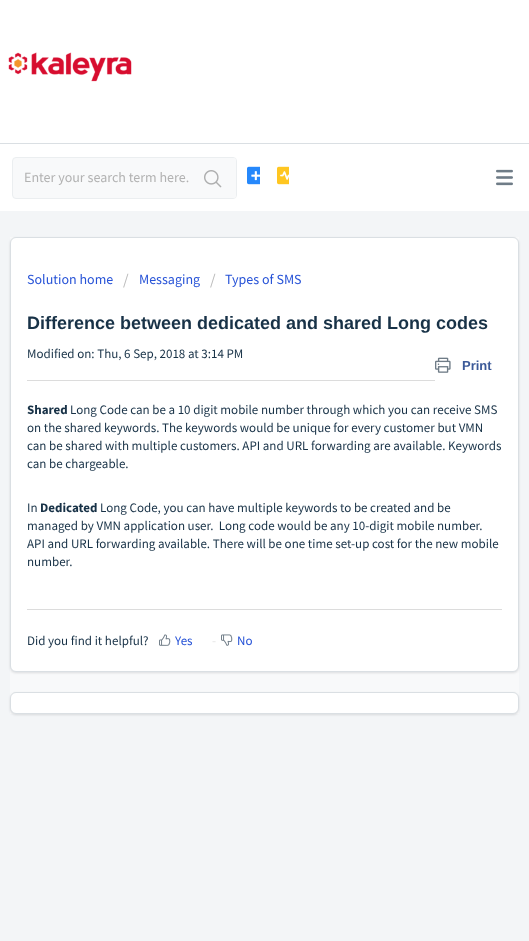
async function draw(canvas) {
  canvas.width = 529
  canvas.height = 941
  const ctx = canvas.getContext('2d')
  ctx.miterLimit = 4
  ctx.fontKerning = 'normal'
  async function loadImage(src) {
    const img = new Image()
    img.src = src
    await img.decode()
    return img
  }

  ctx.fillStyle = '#f3f5f7'
  ctx.fillRect(0, 0, 529, 941)
  ctx.fillStyle = '#fff'
  ctx.fillRect(0, 0, 529, 143)
  ctx.fillStyle = '#dadfe3'
  ctx.fillRect(0, 143, 529, 1)
  ctx.drawImage(await loadImage('image0.png'), 8, 52, 124, 30)
  ctx.fillStyle = '#fff'
  ctx.fillRect(0, 144, 529, 67)
  ctx.drawImage(await loadImage('image1.png'), 496, 169, 17, 17)
  ctx.fillStyle = '#f8f9fa'
  ctx.beginPath()
  ctx.roundRect(12.5, 157.5, 224, 41, 3.5)
  ctx.fill()
  ctx.strokeStyle = '#ebeef0'
  ctx.stroke()
  ctx.font = '14px Source Sans Pro'
  ctx.fillStyle = '#b2b2b2'
  ctx.fillText('Enter your search term here.', 24, 182)
  ctx.fillStyle = '#f8f9fa'
  ctx.beginPath()
  ctx.roundRect(191, 158, 45, 40, 2)
  ctx.fill()
  ctx.drawImage(await loadImage('image2.png'), 204, 170, 18, 18)
  ctx.drawImage(await loadImage('image3.png'), 247, 166, 13, 19)
  ctx.drawImage(await loadImage('image4.png'), 277, 166, 12, 19)
  ctx.fillRect(10, 237, 509, 477)
  ctx.fillStyle = '#3f3f4426'
  ctx.filter = 'blur(1px)'
  ctx.beginPath()
  ctx.roundRect(10, 238, 509, 435, 6)
  ctx.fill()
  ctx.filter = 'none'
  ctx.fillStyle = '#fff'
  ctx.beginPath()
  ctx.roundRect(10.5, 237.5, 508, 434, 5.5)
  ctx.fill()
  ctx.strokeStyle = '#dadfe3'
  ctx.stroke()
  ctx.fillStyle = '#2753d7'
  ctx.fillText('Solution home', 27, 284)
  ctx.font = '16px Source Sans Pro'
  ctx.fillStyle = '#bbb'
  ctx.fillText('/', 123, 285)
  ctx.font = '14px Source Sans Pro'
  ctx.fillStyle = '#2753d7'
  ctx.fillText('Messaging', 139, 284)
  ctx.font = '16px Source Sans Pro'
  ctx.fillStyle = '#bbb'
  ctx.fillText('/', 210, 285)
  ctx.font = '14px Source Sans Pro'
  ctx.fillStyle = '#2753d7'
  ctx.fillText('Types of SMS', 225, 284)
  ctx.font = 'bold 18px Liberation Sans'
  ctx.fillStyle = '#183247'
  ctx.fillText('Difference between dedicated and shared Long codes', 27, 329)
  ctx.drawImage(await loadImage('image5.png'), 435, 357, 16, 16)
  ctx.font = 'bold 13px Liberation Sans'
  ctx.fillStyle = '#3b5998'
  ctx.fillText('Print', 462, 370)
  ctx.font = '13px Source Sans Pro'
  ctx.fillStyle = '#183247'
  ctx.fillText('Modified on: Thu, 6 Sep, 2018 at 3:14 PM', 27, 358)
  ctx.fillStyle = '#dcdcdc'
  ctx.fillRect(27, 380, 408, 1)
  ctx.font = 'bold 13px Source Sans Pro'
  ctx.fillStyle = '#183247'
  ctx.fillText('Shared', 27, 414)
  ctx.font = '13px Source Sans Pro'
  ctx.fillText('Long Code can be a 10 digit mobile number through which you can receive SMS', 70, 414)
  ctx.fillText('on the shared keywords. The keywords would be unique for every customer but VMN', 27, 432)
  ctx.fillText('can be shared with multiple customers. API and URL forwarding are available. Keywords', 27, 450)
  ctx.fillText('can be chargeable.', 27, 468)
  ctx.fillText('In', 27, 512)
  ctx.font = 'bold 13px Source Sans Pro'
  ctx.fillText('Dedicated', 40, 512)
  ctx.font = '13px Source Sans Pro'
  ctx.fillText('Long Code, you can have multiple keywords to be created and be', 100, 512)
  ctx.fillText('managed by VMN application user.  Long code would be any 10-digit mobile number.', 27, 530)
  ctx.fillText('API and URL forwarding available. There will be one time set-up cost for the new mobile', 27, 548)
  ctx.fillText('number.', 27, 566)
  ctx.fillStyle = '#dcdcdc'
  ctx.fillRect(27, 609, 475, 1)
  ctx.fillStyle = '#183247'
  ctx.fillText('Did you find it helpful?', 27, 645)
  ctx.drawImage(await loadImage('image6.png'), 159, 634, 12, 12)
  ctx.fillStyle = '#2753d7'
  ctx.fillText('Yes', 175, 645)
  ctx.fillStyle = '#e5e5e5'
  ctx.fillText('-', 212, 645)
  ctx.drawImage(await loadImage('image7.png'), 221, 634, 12, 12)
  ctx.fillStyle = '#2753d7'
  ctx.fillText('No', 237, 645)
  ctx.fillStyle = '#3f3f4426'
  ctx.filter = 'blur(1px)'
  ctx.beginPath()
  ctx.roundRect(10, 693, 509, 22, 6)
  ctx.fill()
  ctx.filter = 'none'
  ctx.fillStyle = '#fff'
  ctx.beginPath()
  ctx.roundRect(10.5, 692.5, 508, 21, 5.5)
  ctx.fill()
  ctx.stroke()
}

draw(document.querySelector('canvas'))
